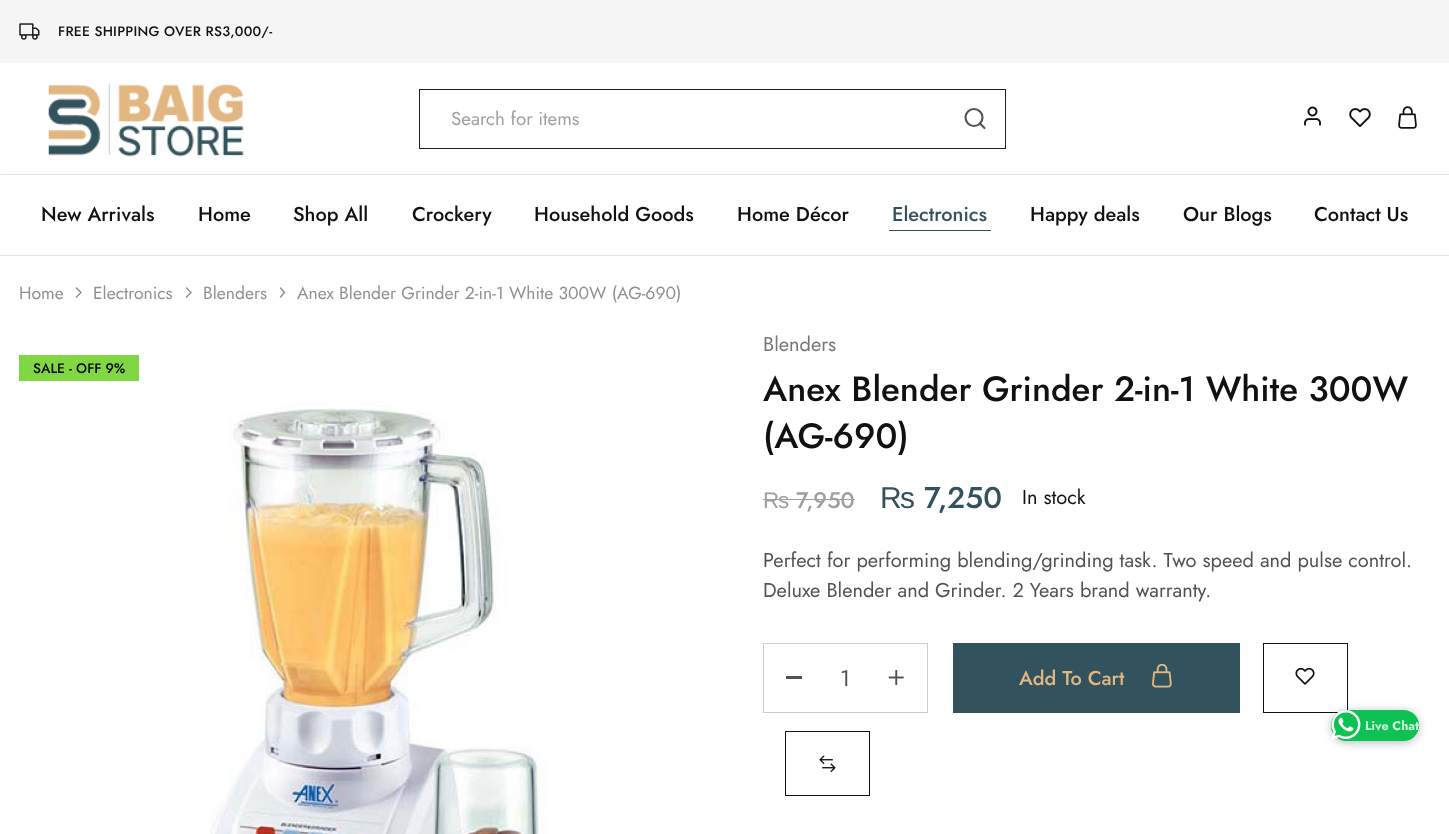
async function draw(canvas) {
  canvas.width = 1449
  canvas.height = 834
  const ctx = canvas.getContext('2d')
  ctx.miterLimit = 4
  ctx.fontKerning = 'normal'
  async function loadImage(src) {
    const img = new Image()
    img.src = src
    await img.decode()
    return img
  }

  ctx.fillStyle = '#fff'
  ctx.fillRect(0, 0, 1449, 834)
  ctx.fillStyle = '#f5f5f5'
  ctx.fillRect(0, 0, 1449, 63)
  ctx.drawImage(await loadImage('image0.png'), 19, 23, 21, 17)
  ctx.letterSpacing = '0.25px'
  ctx.font = '500 13.75px Jost'
  ctx.fillStyle = '#111'
  ctx.fillText('FREE SHIPPING OVER RS3,000/-', 58, 36)
  ctx.fillStyle = '#e2e2e2'
  ctx.fillRect(0, 255, 1449, 1)
  ctx.beginPath()
  ctx.moveTo(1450, 175)
  ctx.lineTo(0, 175)
  ctx.lineTo(1, 174)
  ctx.lineTo(1449, 174)
  ctx.closePath()
  ctx.fill()
  ctx.drawImage(await loadImage('image1.png'), 47, 83, 197, 74)
  ctx.strokeStyle = '#1f1f1f'
  ctx.strokeRect(419.5, 89.5, 586, 59)
  ctx.letterSpacing = '0px'
  ctx.font = '18.75px Jost'
  ctx.fillStyle = '#a0a0a0'
  ctx.fillText('Search for items', 451, 125)
  ctx.beginPath()
  ctx.arc(974, 117.5, 8.5, 0, 2 * Math.PI)
  ctx.strokeStyle = '#525252'
  ctx.lineWidth = 2.1
  ctx.stroke()
  ctx.beginPath()
  ctx.moveTo(984.5, 128)
  ctx.lineTo(980, 123.5)
  ctx.lineCap = 'round'
  ctx.lineJoin = 'round'
  ctx.stroke()
  ctx.drawImage(await loadImage('image2.png'), 1304, 106, 17, 20)
  ctx.drawImage(await loadImage('image3.png'), 1349, 108, 22, 19)
  ctx.drawImage(await loadImage('image4.png'), 1398, 106, 19, 23)
  ctx.font = '500 20px Jost'
  ctx.fillStyle = '#111'
  ctx.fillText('New Arrivals', 41, 221)
  ctx.fillText('Home', 198, 221)
  ctx.fillText('Shop All', 293, 221)
  ctx.fillText('Crockery', 412, 221)
  ctx.fillText('Household Goods', 534, 221)
  ctx.fillText('Home Décor', 737, 221)
  ctx.fillStyle = '#32525d'
  ctx.fillText('Electronics', 892, 221)
  ctx.fillRect(889, 230, 102, 1)
  ctx.fillStyle = '#111'
  ctx.fillText('Happy deals', 1030, 221)
  ctx.fillText('Our Blogs', 1183, 221)
  ctx.fillText('Contact Us', 1314, 221)
  ctx.font = '17.5px Jost'
  ctx.fillStyle = '#909090'
  ctx.fillText('Home', 19, 299)
  ctx.beginPath()
  ctx.moveTo(76.5, 297)
  ctx.lineTo(81, 292.5)
  ctx.lineTo(76.5, 288)
  ctx.strokeStyle = '#909090'
  ctx.lineWidth = 1.5
  ctx.stroke()
  ctx.fillText('Electronics', 93, 299)
  ctx.beginPath()
  ctx.moveTo(186.5, 297)
  ctx.lineTo(191, 292.5)
  ctx.lineTo(186.5, 288)
  ctx.stroke()
  ctx.fillText('Blenders', 203, 299)
  ctx.beginPath()
  ctx.moveTo(280.5, 297)
  ctx.lineTo(284.5, 292.5)
  ctx.lineTo(280.5, 288)
  ctx.stroke()
  ctx.fillText('Anex Blender Grinder 2-in-1 White 300W (AG-690)', 297, 299)
  ctx.fillStyle = '#81d742'
  ctx.fillRect(19, 355, 120, 26)
  ctx.font = '500 13.75px Jost'
  ctx.fillStyle = '#000'
  ctx.fillText('SALE - OFF 9%', 33, 373)
  ctx.drawImage(await loadImage('image5.png'), 210, 402, 336, 432)
  ctx.font = '20px Jost'
  ctx.fillStyle = '#767676'
  ctx.fillText('Blenders', 763, 351)
  ctx.font = '500 35px Jost'
  ctx.fillStyle = '#111'
  ctx.fillText('Anex Blender Grinder 2-in-1 White 300W', 763, 401)
  ctx.fillText('(AG-690)', 763, 448)
  ctx.font = '22.5px Liberation Sans'
  ctx.fillStyle = '#a0a0a0'
  ctx.fillText('₨', 763, 508)
  ctx.fillRect(763, 499, 26, 1)
  ctx.fillRect(789, 499, 66, 1)
  ctx.font = '500 22.5px Jost'
  ctx.fillText('7,950', 796, 508)
  ctx.font = '30px Liberation Sans'
  ctx.fillStyle = '#32525d'
  ctx.fillText('₨', 880, 508)
  ctx.font = '500 30px Jost'
  ctx.fillText('7,250', 924, 508)
  ctx.font = '20px Jost'
  ctx.fillStyle = '#111'
  ctx.fillText('In stock', 1022, 504)
  ctx.fillStyle = '#525252'
  ctx.fillText('Perfect for performing blending/grinding task. Two speed and pulse control.', 763, 567)
  ctx.fillText('Deluxe Blender and Grinder. 2 Years brand warranty.', 763, 597)
  ctx.strokeStyle = '#cdcdcd'
  ctx.lineWidth = 1
  ctx.lineJoin = 'miter'
  ctx.strokeRect(763.5, 643.5, 164, 69)
  ctx.fillRect(786, 676, 16, 3)
  ctx.font = '22.5px Jost'
  ctx.fillText('1', 840, 686)
  ctx.drawImage(await loadImage('image6.png'), 888, 670, 16, 15)
  ctx.fillStyle = '#32525d'
  ctx.fillRect(953, 643, 287, 70)
  ctx.font = '500 20px Jost'
  ctx.fillStyle = '#e1b783'
  ctx.fillText('Add To Cart', 1019, 685)
  ctx.drawImage(await loadImage('image7.png'), 1152, 664, 20, 24)
  ctx.strokeStyle = '#111'
  ctx.strokeRect(1263.5, 643.5, 84, 69)
  ctx.drawImage(await loadImage('image8.png'), 1295, 667, 20, 18)
  ctx.strokeRect(785.5, 731.5, 84, 64)
  ctx.drawImage(await loadImage('image9.png'), 819, 755, 17, 18)
  ctx.fillStyle = '#39494c59'
  ctx.filter = 'blur(4px)'
  ctx.beginPath()
  ctx.roundRect(1331, 711, 88, 32, 16)
  ctx.fill()
  ctx.filter = 'none'
  ctx.fillStyle = '#0dc152'
  ctx.beginPath()
  ctx.roundRect(1331, 710, 88, 31, 15.5)
  ctx.fill()
  ctx.drawImage(await loadImage('image10.png'), 1331, 710, 30, 30)
  ctx.font = 'bold 12.5px Jost'
  ctx.fillStyle = '#cef3dc'
  ctx.fillText('Live Chat', 1365, 730)
}

draw(document.querySelector('canvas'))
